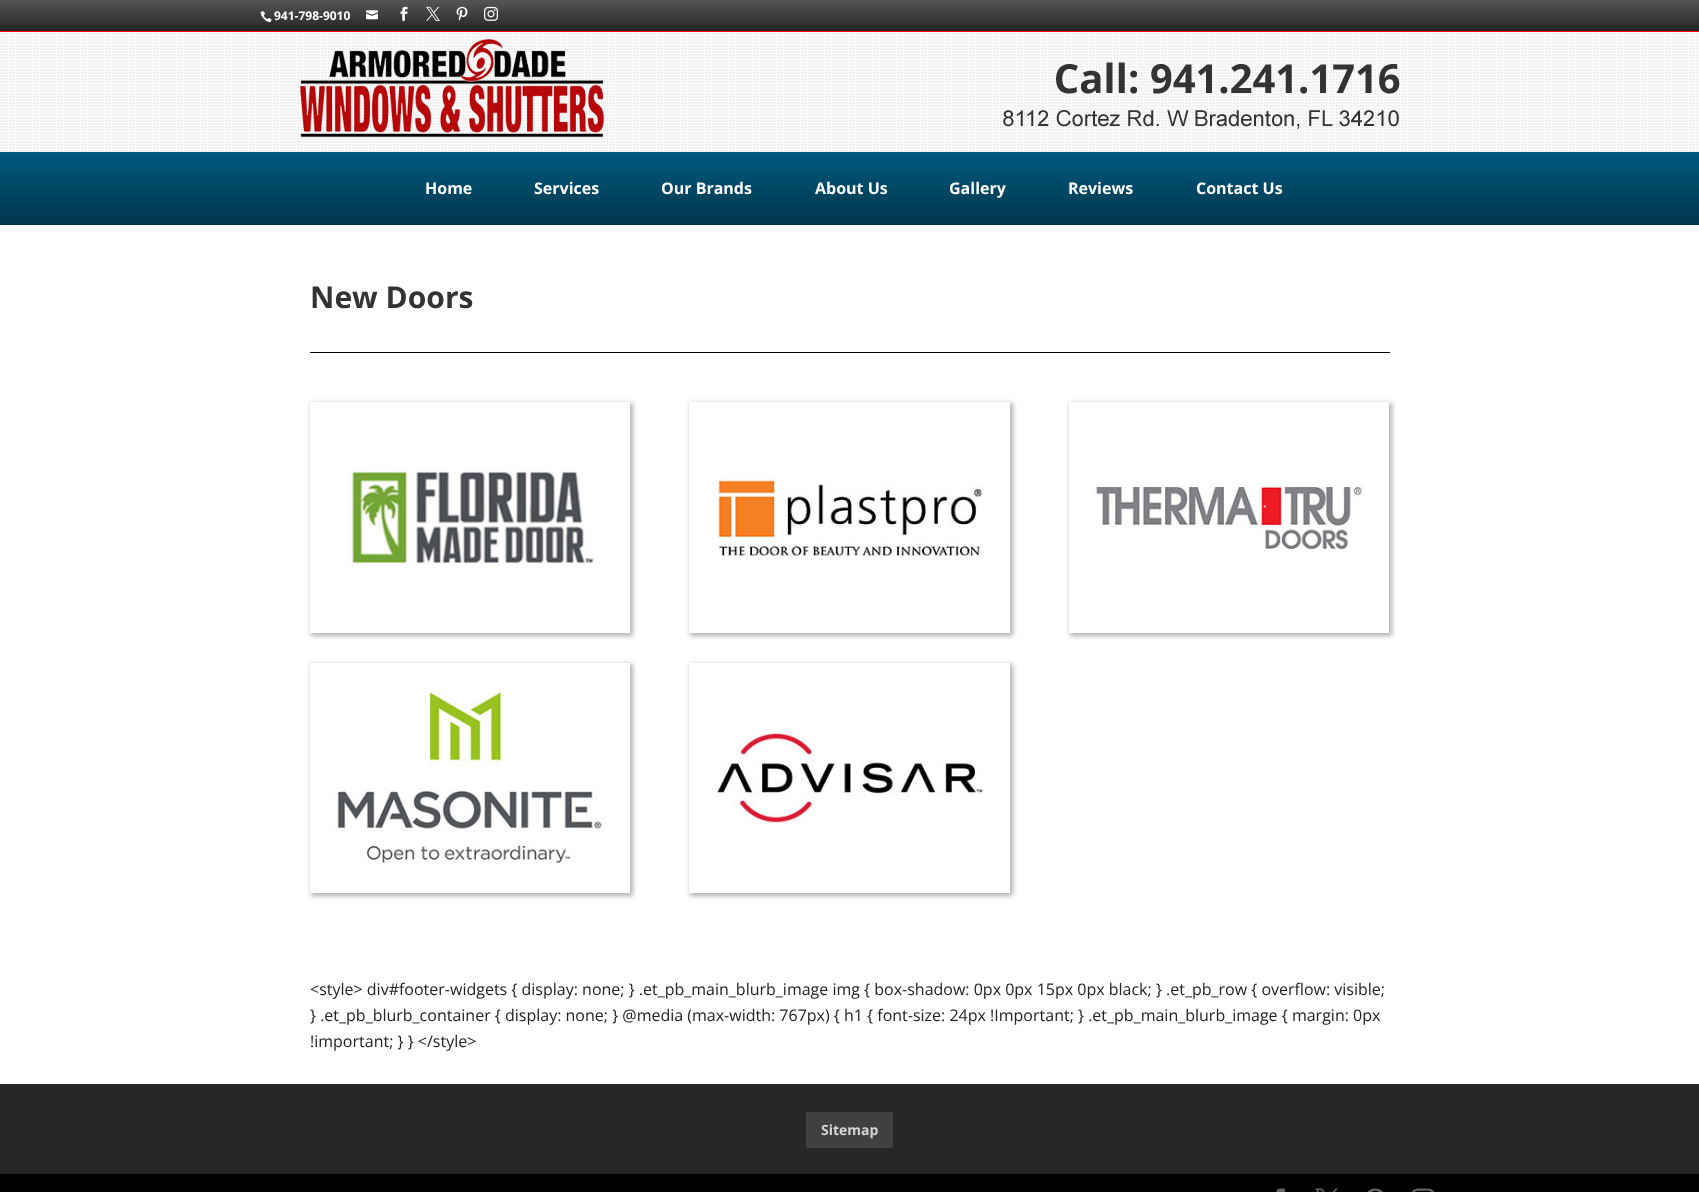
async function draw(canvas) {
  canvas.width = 1699;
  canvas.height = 1192;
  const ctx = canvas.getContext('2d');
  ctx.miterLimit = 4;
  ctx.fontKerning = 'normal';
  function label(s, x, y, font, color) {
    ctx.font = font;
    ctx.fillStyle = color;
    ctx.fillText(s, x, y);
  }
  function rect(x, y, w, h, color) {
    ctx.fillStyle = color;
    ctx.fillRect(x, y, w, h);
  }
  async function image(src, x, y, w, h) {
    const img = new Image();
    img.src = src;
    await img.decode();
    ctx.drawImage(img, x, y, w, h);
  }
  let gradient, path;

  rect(0, 0, 1699, 1192, '#fff');
  await image('assets/img1.png', 0, 31, 1699, 194);
  gradient = ctx.createLinearGradient(850, 0, 850, 31);
  gradient.addColorStop(0, '#555');
  gradient.addColorStop(1, '#252525');
  ctx.fillStyle = gradient;
  ctx.fillRect(0, 0, 1699, 31);
  await image('assets/img2.png', 260, 11, 12, 12);
  label('941-798-9010', 274, 20, 'bold 12px Open Sans', '#fff');
  await image('assets/img3.png', 366, 10, 12, 10);
  await image('assets/img4.png', 400, 6, 8, 15);
  await image('assets/img5.png', 426, 6, 14, 15);
  await image('assets/img6.png', 456, 6, 12, 15);
  await image('assets/img7.png', 484, 6, 14, 15);
  await image('assets/img8.png', 299, 38, 1101, 100);
  label('Home', 425, 194, 'bold 16px Open Sans', '#fff');
  label('Services', 534, 194, 'bold 16px Open Sans', '#fff');
  label('Our Brands', 661, 194, 'bold 16px Open Sans', '#fff');
  label('About Us', 815, 194, 'bold 16px Open Sans', '#fff');
  label('Gallery', 949, 194, 'bold 16px Open Sans', '#fff');
  label('Reviews', 1068, 194, 'bold 16px Open Sans', '#fff');
  label('Contact Us', 1196, 194, 'bold 16px Open Sans', '#fff');
  label('New Doors', 310, 308, 'bold 30px Open Sans', '#333');
  rect(310, 352, 1080, 1, '#000');
  ctx.save();
  path = new Path2D('M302 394H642V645H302ZM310 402H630V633H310Z');
  ctx.clip(path, 'evenodd');
  ctx.fillStyle = '#0000004d';
  ctx.filter = 'blur(2.5px)';
  ctx.beginPath();
  ctx.rect(311, 403, 322, 233);
  ctx.fill();
  ctx.filter = 'none';
  ctx.restore();
  await image('assets/img9.png', 347, 469, 247, 96);
  ctx.save();
  path = new Path2D('M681 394H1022V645H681ZM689 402H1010V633H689Z');
  ctx.clip(path, 'evenodd');
  ctx.fillStyle = '#0000004d';
  ctx.filter = 'blur(2.5px)';
  ctx.beginPath();
  ctx.rect(690, 403, 323, 233);
  ctx.fill();
  ctx.filter = 'none';
  ctx.restore();
  await image('assets/img10.png', 718, 476, 267, 81);
  ctx.save();
  path = new Path2D('M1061 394H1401V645H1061ZM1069 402H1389V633H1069Z');
  ctx.clip(path, 'evenodd');
  ctx.fillStyle = '#0000004d';
  ctx.filter = 'blur(2.5px)';
  ctx.beginPath();
  ctx.rect(1070, 403, 322, 233);
  ctx.fill();
  ctx.filter = 'none';
  ctx.restore();
  await image('assets/img11.png', 1092, 483, 272, 67);
  ctx.save();
  path = new Path2D('M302 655H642V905H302ZM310 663H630V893H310Z');
  ctx.clip(path, 'evenodd');
  ctx.fillStyle = '#0000004d';
  ctx.filter = 'blur(2.5px)';
  ctx.beginPath();
  ctx.rect(311, 664, 322, 232);
  ctx.fill();
  ctx.filter = 'none';
  ctx.restore();
  await image('assets/img12.png', 332, 692, 273, 172);
  ctx.save();
  path = new Path2D('M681 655H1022V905H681ZM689 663H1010V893H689Z');
  ctx.clip(path, 'evenodd');
  ctx.fillStyle = '#0000004d';
  ctx.filter = 'blur(2.5px)';
  ctx.beginPath();
  ctx.rect(690, 664, 323, 232);
  ctx.fill();
  ctx.filter = 'none';
  ctx.restore();
  await image('assets/img13.png', 712, 729, 272, 96);
  label('<style> div#footer-widgets { display: none; } .et_pb_main_blurb_image img { box-shadow: 0px 0px 15px 0px black; } .et_pb_row { overflow: visible;', 310, 995, '16px Open Sans', '#222');
  label('} .et_pb_blurb_container { display: none; } @media (max-width: 767px) { h1 { font-size: 24px !Important; } .et_pb_main_blurb_image { margin: 0px', 310, 1021, '16px Open Sans', '#222');
  label('!important; } } <\/style>', 310, 1047, '16px Open Sans', '#222');
  rect(0, 1084, 1699, 90, '#272727');
  rect(806, 1112, 87, 36, '#404040');
  label('Sitemap', 821, 1135, 'bold 14px Open Sans', '#d5d5d5');
  rect(0, 1174, 1699, 18, '#000');
  await image('assets/img14.png', 1276, 1188, 9, 4);
  await image('assets/img15.png', 1315, 1188, 23, 4);
  await image('assets/img16.png', 1367, 1188, 16, 4);
  await image('assets/img17.png', 1412, 1188, 22, 4);
}

draw(document.querySelector('canvas'));
